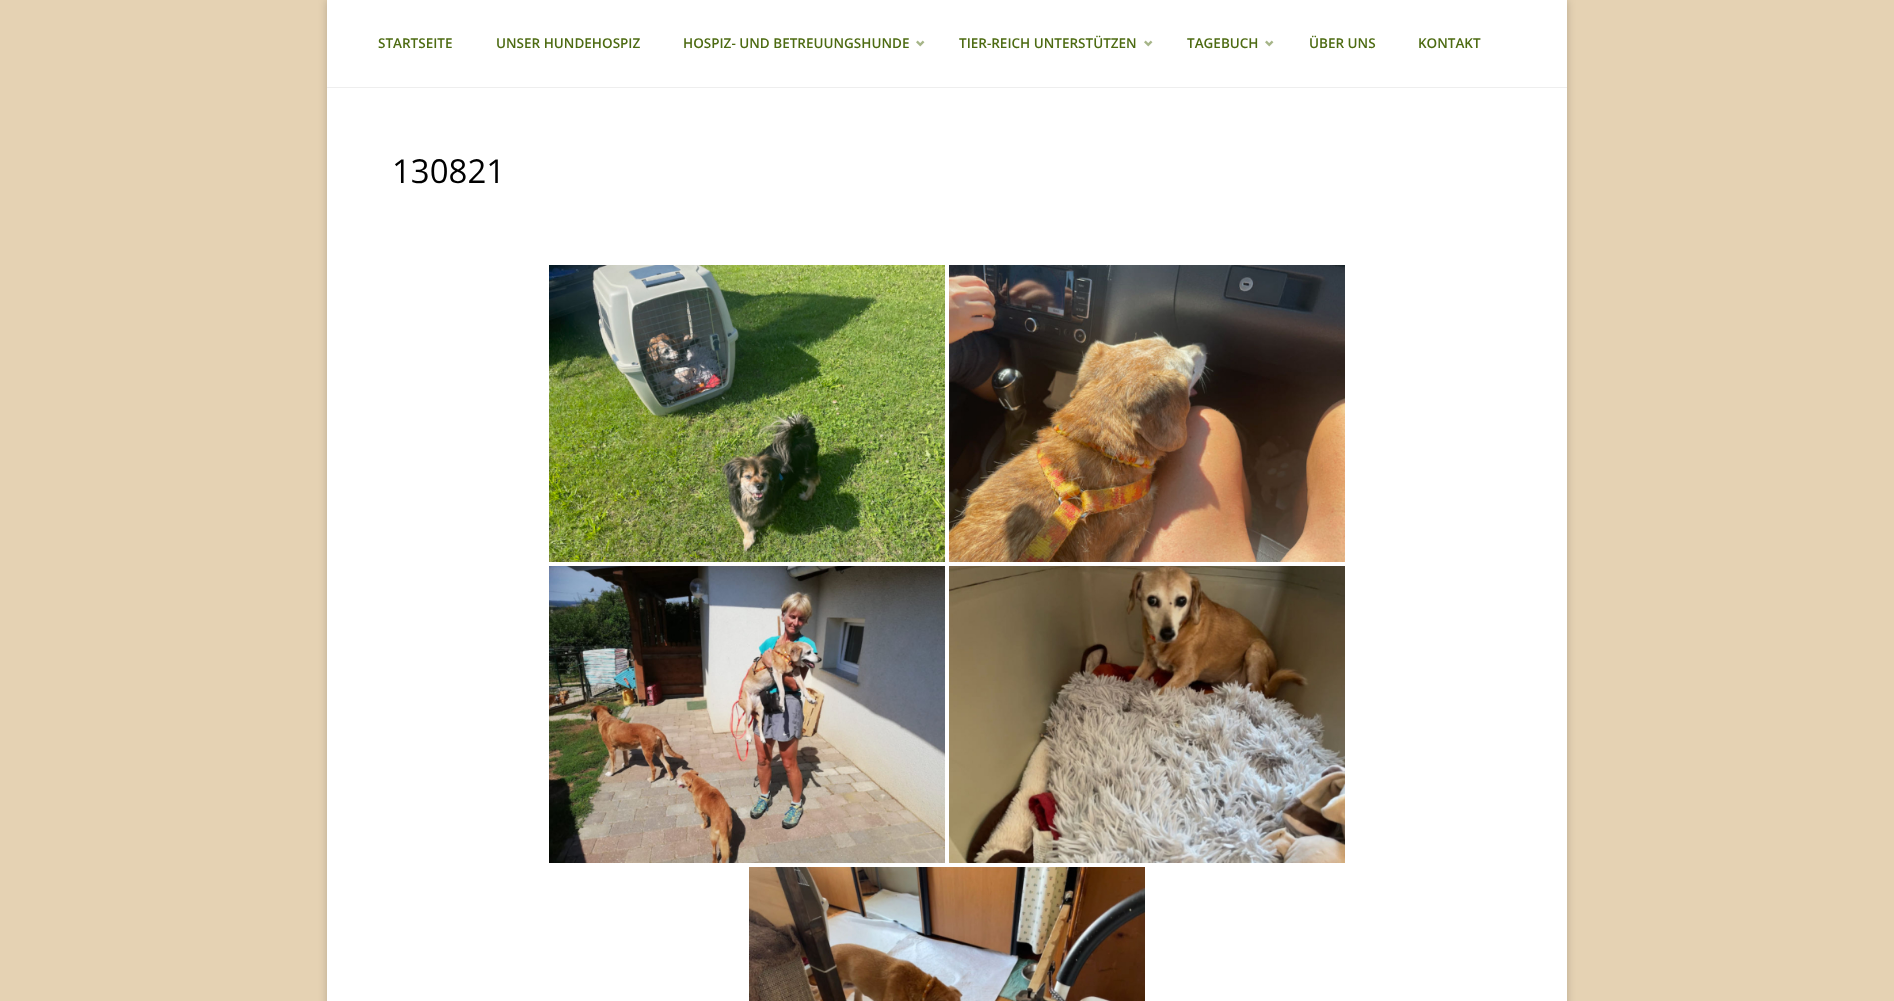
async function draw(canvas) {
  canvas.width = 1894;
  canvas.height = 1001;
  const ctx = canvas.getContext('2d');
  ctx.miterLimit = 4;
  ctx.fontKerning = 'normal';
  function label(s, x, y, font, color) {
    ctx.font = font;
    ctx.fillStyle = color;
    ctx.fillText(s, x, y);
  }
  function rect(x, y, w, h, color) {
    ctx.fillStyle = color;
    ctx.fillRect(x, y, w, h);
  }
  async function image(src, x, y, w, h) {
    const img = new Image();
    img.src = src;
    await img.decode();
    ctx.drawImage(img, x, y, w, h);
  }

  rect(0, 0, 1894, 1001, '#e5d2b3');
  ctx.fillStyle = '#00000033';
  ctx.filter = 'blur(4px)';
  ctx.beginPath();
  ctx.rect(327, 0, 1240, 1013);
  ctx.fill();
  ctx.filter = 'none';
  rect(327, 87, 1240, 1, '#eee');
  rect(327, 0, 1240, 87, '#fff');
  label('STARTSEITE', 378, 48, '600 13.5px Open Sans', '#4d6b12');
  label('UNSER HUNDEHOSPIZ', 496, 48, '600 13.5px Open Sans', '#4d6b12');
  label('HOSPIZ- UND BETREUUNGSHUNDE', 683, 48, '600 13.5px Open Sans', '#4d6b12');
  await image('assets/img1.png', 916, 40, 9, 7);
  label('TIER-REICH UNTERSTÜTZEN', 959, 48, '600 13.5px Open Sans', '#4d6b12');
  await image('assets/img1.png', 1144, 40, 9, 7);
  label('TAGEBUCH', 1187, 48, '600 13.5px Open Sans', '#4d6b12');
  await image('assets/img1.png', 1265, 40, 9, 7);
  label('ÜBER UNS', 1309, 48, '600 13.5px Open Sans', '#4d6b12');
  label('KONTAKT', 1418, 48, '600 13.5px Open Sans', '#4d6b12');
  rect(327, 88, 1240, 913, '#fff');
  label('130821', 392, 183, '33px Open Sans', '#000');
  await image('assets/img2.png', 549, 265, 396, 297);
  await image('assets/img3.png', 949, 265, 396, 297);
  await image('assets/img4.png', 549, 566, 396, 297);
  await image('assets/img5.png', 949, 566, 396, 297);
  await image('assets/img6.png', 749, 867, 396, 134);
}

draw(document.querySelector('canvas'));
